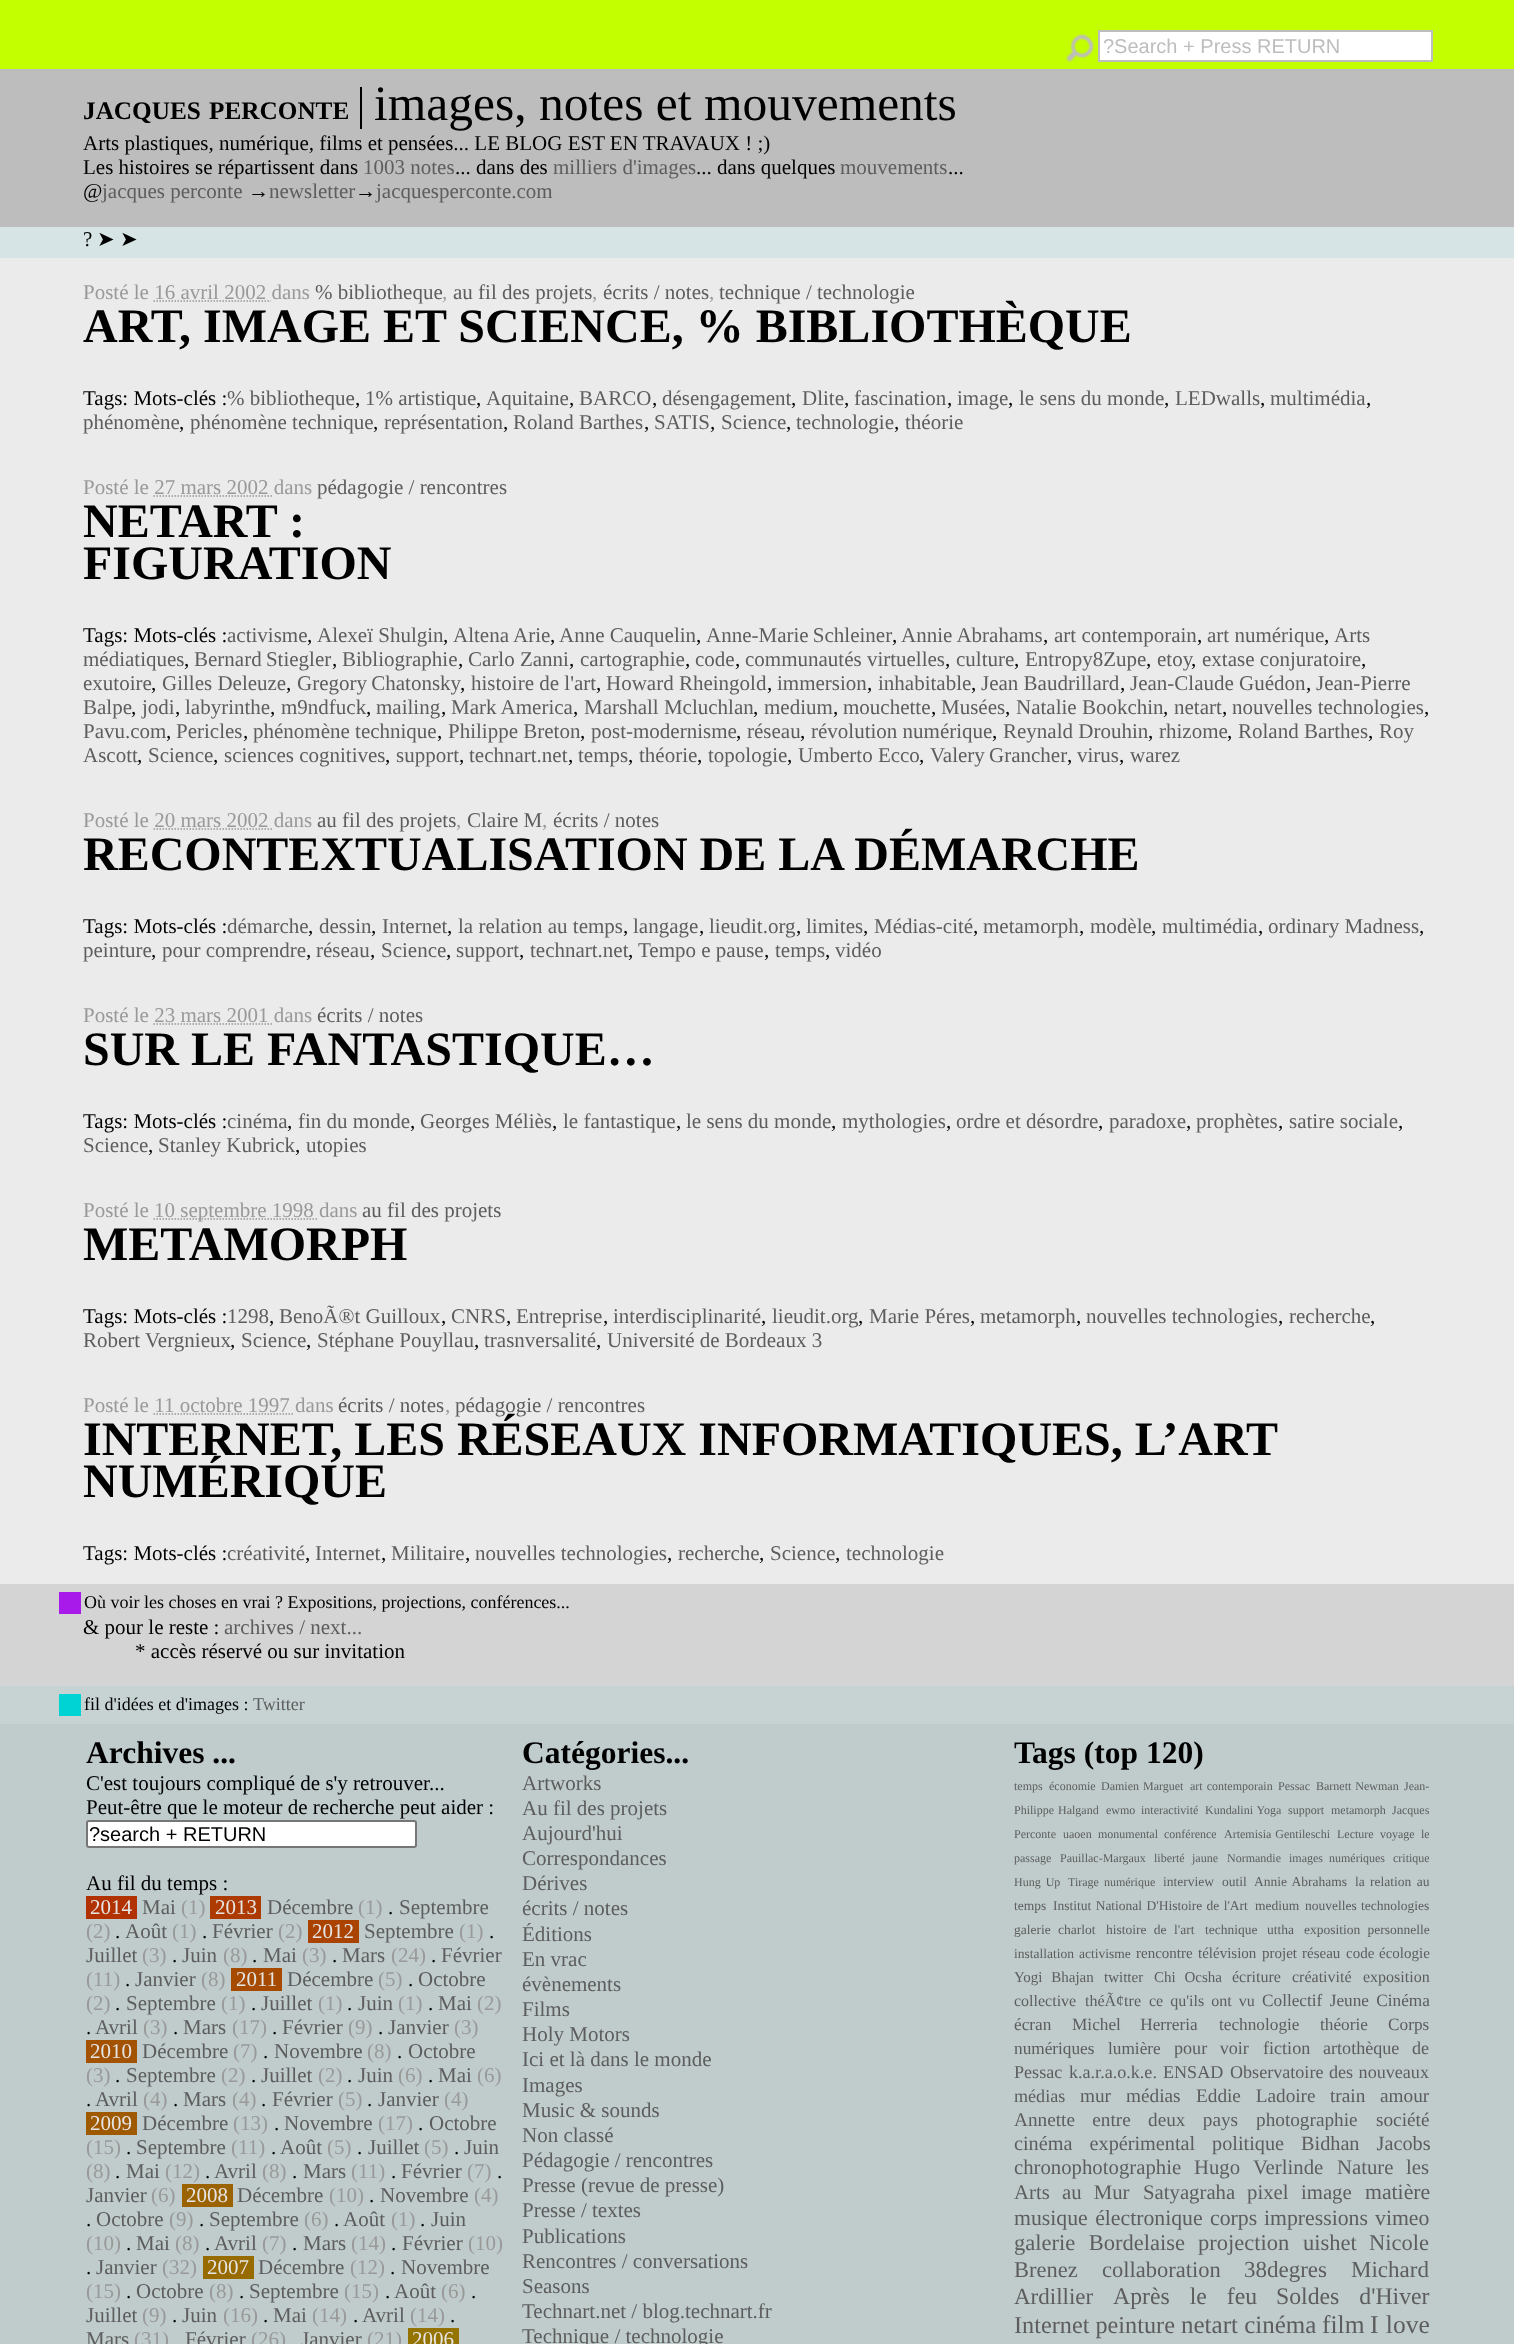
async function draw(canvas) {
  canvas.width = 1514;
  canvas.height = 2344;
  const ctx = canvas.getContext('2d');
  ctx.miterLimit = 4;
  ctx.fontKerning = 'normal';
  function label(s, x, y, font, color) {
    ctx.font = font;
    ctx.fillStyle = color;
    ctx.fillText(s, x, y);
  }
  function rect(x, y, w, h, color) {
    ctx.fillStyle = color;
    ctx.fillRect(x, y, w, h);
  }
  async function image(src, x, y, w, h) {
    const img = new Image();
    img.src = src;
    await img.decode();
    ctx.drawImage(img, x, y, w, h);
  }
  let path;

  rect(0, 0, 1514, 2344, '#c4ff00');
  await image('assets/img1.png', 1066, 34, 28, 28);
  ctx.fillStyle = '#fff';
  ctx.beginPath();
  ctx.rect(1099, 31, 333, 30);
  ctx.fill();
  ctx.strokeStyle = '#bdbdbd';
  ctx.lineWidth = 2;
  ctx.stroke();
  label('?Search + Press RETURN', 1103, 53, '20px Liberation Sans', '#bdbdbd');
  rect(0, 69, 1514, 158, '#bdbdbd');
  label('JACQUES', 83, 119, 'bold 25.25px Liberation Serif', '#000');
  label('PERCONTE', 209, 119, 'bold 25.25px Liberation Serif', '#000');
  rect(360, 87, 2, 42, '#000');
  label('images, notes et mouvements', 374, 120, '49.5px Liberation Serif', '#000');
  label('Arts plastiques, numérique, films et pensées... LE BLOG EST EN TRAVAUX ! ;)', 83, 150, '21px Liberation Serif', '#000');
  label('Les histoires se répartissent dans', 83, 174, '21px Liberation Serif', '#000');
  label('1003 notes', 363, 174, '21px Liberation Serif', '#5d5d5d');
  label('... dans des', 455, 174, '21px Liberation Serif', '#000');
  label('milliers d\'images', 553, 174, '21px Liberation Serif', '#5d5d5d');
  label('... dans quelques', 696, 174, '21px Liberation Serif', '#000');
  label('mouvements', 840, 174, '21px Liberation Serif', '#5d5d5d');
  label('...', 948, 174, '21px Liberation Serif', '#000');
  label('@', 83, 198, '21px Liberation Serif', '#000');
  label('jacques perconte', 102, 198, '21px Liberation Serif', '#5d5d5d');
  label('→', 248, 198, '21px Liberation Serif', '#000');
  label('newsletter', 269, 198, '21px Liberation Serif', '#5d5d5d');
  label('→', 355, 198, '21px Liberation Serif', '#000');
  label('jacquesperconte.com', 376, 198, '21px Liberation Serif', '#5d5d5d');
  rect(0, 227, 1514, 31, '#d6e4e5');
  label('?', 83, 246, '21px Liberation Serif', '#000');
  label('➤', 97, 246, '21px DejaVu Sans', '#000');
  label('➤', 120, 246, '21px DejaVu Sans', '#000');
  rect(0, 258, 1514, 1326, '#ebebeb');
  label('Posté le 16 avril 2002 dans', 83, 299, '21px Liberation Serif', '#999');
  label('% bibliotheque', 315, 299, '21px Liberation Serif', '#5d5d5d');
  label(',', 442, 299, '21px Liberation Serif', '#999');
  label('au fil des projets', 453, 299, '21px Liberation Serif', '#5d5d5d');
  label(',', 592, 299, '21px Liberation Serif', '#999');
  label('écrits / notes', 603, 299, '21px Liberation Serif', '#5d5d5d');
  label(',', 709, 299, '21px Liberation Serif', '#999');
  label('technique / technologie', 719, 299, '21px Liberation Serif', '#5d5d5d');
  path = new Path2D('M153.5 301H271');
  ctx.strokeStyle = '#999';
  ctx.lineWidth = 1.5;
  ctx.setLineDash([1.5, 1.5]);
  ctx.stroke(path);
  label('ART, IMAGE ET SCIENCE, % BIBLIOTHÈQUE', 83, 342, 'bold 48px Liberation Serif', '#000');
  label('Tags: Mots-clés :', 83, 405, '21px Liberation Serif', '#000');
  label('% bibliotheque', 227, 405, '21px Liberation Serif', '#5d5d5d');
  label(',', 355, 405, '21px Liberation Serif', '#000');
  label('1% artistique', 365, 405, '21px Liberation Serif', '#5d5d5d');
  label(',', 476, 405, '21px Liberation Serif', '#000');
  label('Aquitaine', 486, 405, '21px Liberation Serif', '#5d5d5d');
  label(',', 569, 405, '21px Liberation Serif', '#000');
  label('BARCO', 579, 405, '21px Liberation Serif', '#5d5d5d');
  label(',', 652, 405, '21px Liberation Serif', '#000');
  label('désengagement', 662, 405, '21px Liberation Serif', '#5d5d5d');
  label(',', 791, 405, '21px Liberation Serif', '#000');
  label('Dlite', 802, 405, '21px Liberation Serif', '#5d5d5d');
  label(',', 844, 405, '21px Liberation Serif', '#000');
  label('fascination', 854, 405, '21px Liberation Serif', '#5d5d5d');
  label(',', 947, 405, '21px Liberation Serif', '#000');
  label('image', 957, 405, '21px Liberation Serif', '#5d5d5d');
  label(',', 1008, 405, '21px Liberation Serif', '#000');
  label('le sens du monde', 1019, 405, '21px Liberation Serif', '#5d5d5d');
  label(',', 1164, 405, '21px Liberation Serif', '#000');
  label('LEDwalls', 1175, 405, '21px Liberation Serif', '#5d5d5d');
  label(',', 1260, 405, '21px Liberation Serif', '#000');
  label('multimédia', 1270, 405, '21px Liberation Serif', '#5d5d5d');
  label(',', 1366, 405, '21px Liberation Serif', '#000');
  label('phénomène', 83, 429, '21px Liberation Serif', '#5d5d5d');
  label(',', 179, 429, '21px Liberation Serif', '#000');
  label('phénomène technique', 190, 429, '21px Liberation Serif', '#5d5d5d');
  label(',', 373, 429, '21px Liberation Serif', '#000');
  label('représentation', 384, 429, '21px Liberation Serif', '#5d5d5d');
  label(',', 503, 429, '21px Liberation Serif', '#000');
  label('Roland Barthes', 513, 429, '21px Liberation Serif', '#5d5d5d');
  label(',', 644, 429, '21px Liberation Serif', '#000');
  label('SATIS', 654, 429, '21px Liberation Serif', '#5d5d5d');
  label(',', 710, 429, '21px Liberation Serif', '#000');
  label('Science', 721, 429, '21px Liberation Serif', '#5d5d5d');
  label(',', 786, 429, '21px Liberation Serif', '#000');
  label('technologie', 796, 429, '21px Liberation Serif', '#5d5d5d');
  label(',', 894, 429, '21px Liberation Serif', '#000');
  label('théorie', 905, 429, '21px Liberation Serif', '#5d5d5d');
  label('Posté le 27 mars 2002 dans', 83, 494, '21px Liberation Serif', '#999');
  label('pédagogie / rencontres', 317, 494, '21px Liberation Serif', '#5d5d5d');
  path = new Path2D('M153.5 496H273.5');
  ctx.stroke(path);
  label('NETART :', 83, 537, 'bold 48px Liberation Serif', '#000');
  label('FIGURATION', 83, 579, 'bold 48px Liberation Serif', '#000');
  label('Tags: Mots-clés :', 83, 642, '21px Liberation Serif', '#000');
  label('activisme', 227, 642, '21px Liberation Serif', '#5d5d5d');
  label(',', 307, 642, '21px Liberation Serif', '#000');
  label('Alexeï Shulgin', 317, 642, '21px Liberation Serif', '#5d5d5d');
  label(',', 443, 642, '21px Liberation Serif', '#000');
  label('Altena Arie', 453, 642, '21px Liberation Serif', '#5d5d5d');
  label(',', 550, 642, '21px Liberation Serif', '#000');
  label('Anne Cauquelin', 559, 642, '21px Liberation Serif', '#5d5d5d');
  label(',', 696, 642, '21px Liberation Serif', '#000');
  ctx.wordSpacing = '-1px';
  label('Anne-Marie Schleiner', 706, 642, '21px Liberation Serif', '#5d5d5d');
  ctx.wordSpacing = '0px';
  label(',', 892, 642, '21px Liberation Serif', '#000');
  label('Annie Abrahams', 901, 642, '21px Liberation Serif', '#5d5d5d');
  label(',', 1043, 642, '21px Liberation Serif', '#000');
  label('art contemporain', 1054, 642, '21px Liberation Serif', '#5d5d5d');
  label(',', 1197, 642, '21px Liberation Serif', '#000');
  label('art numérique', 1207, 642, '21px Liberation Serif', '#5d5d5d');
  label(',', 1324, 642, '21px Liberation Serif', '#000');
  label('Arts', 1334, 642, '21px Liberation Serif', '#5d5d5d');
  label('médiatiques', 83, 666, '21px Liberation Serif', '#5d5d5d');
  label(',', 184, 666, '21px Liberation Serif', '#000');
  ctx.wordSpacing = '-1px';
  label('Bernard Stiegler', 194, 666, '21px Liberation Serif', '#5d5d5d');
  ctx.wordSpacing = '0px';
  label(',', 332, 666, '21px Liberation Serif', '#000');
  label('Bibliographie', 342, 666, '21px Liberation Serif', '#5d5d5d');
  label(',', 458, 666, '21px Liberation Serif', '#000');
  label('Carlo Zanni', 468, 666, '21px Liberation Serif', '#5d5d5d');
  label(',', 569, 666, '21px Liberation Serif', '#000');
  label('cartographie', 580, 666, '21px Liberation Serif', '#5d5d5d');
  label(',', 685, 666, '21px Liberation Serif', '#000');
  label('code', 695, 666, '21px Liberation Serif', '#5d5d5d');
  label(',', 735, 666, '21px Liberation Serif', '#000');
  label('communautés virtuelles', 745, 666, '21px Liberation Serif', '#5d5d5d');
  label(',', 945, 666, '21px Liberation Serif', '#000');
  label('culture', 956, 666, '21px Liberation Serif', '#5d5d5d');
  label(',', 1014, 666, '21px Liberation Serif', '#000');
  label('Entropy8Zupe', 1025, 666, '21px Liberation Serif', '#5d5d5d');
  label(',', 1146, 666, '21px Liberation Serif', '#000');
  label('etoy', 1157, 666, '21px Liberation Serif', '#5d5d5d');
  label(',', 1191, 666, '21px Liberation Serif', '#000');
  label('extase conjuratoire', 1202, 666, '21px Liberation Serif', '#5d5d5d');
  label(',', 1361, 666, '21px Liberation Serif', '#000');
  label('exutoire', 83, 690, '21px Liberation Serif', '#5d5d5d');
  label(',', 151, 690, '21px Liberation Serif', '#000');
  label('Gilles Deleuze', 162, 690, '21px Liberation Serif', '#5d5d5d');
  label(',', 286, 690, '21px Liberation Serif', '#000');
  ctx.wordSpacing = '-1px';
  label('Gregory Chatonsky', 297, 690, '21px Liberation Serif', '#5d5d5d');
  ctx.wordSpacing = '0px';
  label(',', 460, 690, '21px Liberation Serif', '#000');
  label('histoire de l\'art', 471, 690, '21px Liberation Serif', '#5d5d5d');
  label(',', 596, 690, '21px Liberation Serif', '#000');
  label('Howard Rheingold', 606, 690, '21px Liberation Serif', '#5d5d5d');
  label(',', 767, 690, '21px Liberation Serif', '#000');
  label('immersion', 777, 690, '21px Liberation Serif', '#5d5d5d');
  label(',', 867, 690, '21px Liberation Serif', '#000');
  label('inhabitable', 878, 690, '21px Liberation Serif', '#5d5d5d');
  label(',', 971, 690, '21px Liberation Serif', '#000');
  label('Jean Baudrillard', 981, 690, '21px Liberation Serif', '#5d5d5d');
  label(',', 1120, 690, '21px Liberation Serif', '#000');
  label('Jean-Claude Guédon', 1130, 690, '21px Liberation Serif', '#5d5d5d');
  label(',', 1306, 690, '21px Liberation Serif', '#000');
  label('Jean-Pierre', 1316, 690, '21px Liberation Serif', '#5d5d5d');
  label('Balpe', 83, 714, '21px Liberation Serif', '#5d5d5d');
  label(',', 131, 714, '21px Liberation Serif', '#000');
  label('jodi', 142, 714, '21px Liberation Serif', '#5d5d5d');
  label(',', 175, 714, '21px Liberation Serif', '#000');
  label('labyrinthe', 185, 714, '21px Liberation Serif', '#5d5d5d');
  label(',', 270, 714, '21px Liberation Serif', '#000');
  label('m9ndfuck', 281, 714, '21px Liberation Serif', '#5d5d5d');
  label(',', 366, 714, '21px Liberation Serif', '#000');
  label('mailing', 376, 714, '21px Liberation Serif', '#5d5d5d');
  label(',', 441, 714, '21px Liberation Serif', '#000');
  label('Mark America', 451, 714, '21px Liberation Serif', '#5d5d5d');
  label(',', 573, 714, '21px Liberation Serif', '#000');
  label('Marshall Mcluchlan', 584, 714, '21px Liberation Serif', '#5d5d5d');
  label(',', 753, 714, '21px Liberation Serif', '#000');
  label('medium', 764, 714, '21px Liberation Serif', '#5d5d5d');
  label(',', 833, 714, '21px Liberation Serif', '#000');
  label('mouchette', 843, 714, '21px Liberation Serif', '#5d5d5d');
  label(',', 931, 714, '21px Liberation Serif', '#000');
  label('Musées', 941, 714, '21px Liberation Serif', '#5d5d5d');
  label(',', 1005, 714, '21px Liberation Serif', '#000');
  label('Natalie Bookchin', 1016, 714, '21px Liberation Serif', '#5d5d5d');
  label(',', 1163, 714, '21px Liberation Serif', '#000');
  label('netart', 1174, 714, '21px Liberation Serif', '#5d5d5d');
  label(',', 1222, 714, '21px Liberation Serif', '#000');
  label('nouvelles technologies', 1232, 714, '21px Liberation Serif', '#5d5d5d');
  label(',', 1424, 714, '21px Liberation Serif', '#000');
  label('Pavu.com', 83, 738, '21px Liberation Serif', '#5d5d5d');
  label(',', 166, 738, '21px Liberation Serif', '#000');
  label('Pericles', 176, 738, '21px Liberation Serif', '#5d5d5d');
  label(',', 243, 738, '21px Liberation Serif', '#000');
  label('phénomène technique', 253, 738, '21px Liberation Serif', '#5d5d5d');
  label(',', 437, 738, '21px Liberation Serif', '#000');
  label('Philippe Breton', 448, 738, '21px Liberation Serif', '#5d5d5d');
  label(',', 580, 738, '21px Liberation Serif', '#000');
  label('post-modernisme', 591, 738, '21px Liberation Serif', '#5d5d5d');
  label(',', 736, 738, '21px Liberation Serif', '#000');
  label('réseau', 747, 738, '21px Liberation Serif', '#5d5d5d');
  label(',', 800, 738, '21px Liberation Serif', '#000');
  label('révolution numérique', 811, 738, '21px Liberation Serif', '#5d5d5d');
  label(',', 992, 738, '21px Liberation Serif', '#000');
  label('Reynald Drouhin', 1003, 738, '21px Liberation Serif', '#5d5d5d');
  label(',', 1148, 738, '21px Liberation Serif', '#000');
  label('rhizome', 1159, 738, '21px Liberation Serif', '#5d5d5d');
  label(',', 1227, 738, '21px Liberation Serif', '#000');
  label('Roland Barthes', 1238, 738, '21px Liberation Serif', '#5d5d5d');
  label(',', 1368, 738, '21px Liberation Serif', '#000');
  label('Roy', 1379, 738, '21px Liberation Serif', '#5d5d5d');
  label('Ascott', 83, 762, '21px Liberation Serif', '#5d5d5d');
  label(',', 137, 762, '21px Liberation Serif', '#000');
  label('Science', 148, 762, '21px Liberation Serif', '#5d5d5d');
  label(',', 213, 762, '21px Liberation Serif', '#000');
  label('sciences cognitives', 224, 762, '21px Liberation Serif', '#5d5d5d');
  label(',', 385, 762, '21px Liberation Serif', '#000');
  label('support', 396, 762, '21px Liberation Serif', '#5d5d5d');
  label(',', 459, 762, '21px Liberation Serif', '#000');
  label('technart.net', 469, 762, '21px Liberation Serif', '#5d5d5d');
  label(',', 568, 762, '21px Liberation Serif', '#000');
  label('temps', 578, 762, '21px Liberation Serif', '#5d5d5d');
  label(',', 628, 762, '21px Liberation Serif', '#000');
  label('théorie', 639, 762, '21px Liberation Serif', '#5d5d5d');
  label(',', 697, 762, '21px Liberation Serif', '#000');
  label('topologie', 708, 762, '21px Liberation Serif', '#5d5d5d');
  label(',', 787, 762, '21px Liberation Serif', '#000');
  label('Umberto Ecco', 798, 762, '21px Liberation Serif', '#5d5d5d');
  label(',', 919, 762, '21px Liberation Serif', '#000');
  ctx.wordSpacing = '-1px';
  label('Valery Grancher', 930, 762, '21px Liberation Serif', '#5d5d5d');
  ctx.wordSpacing = '0px';
  label(',', 1067, 762, '21px Liberation Serif', '#000');
  label('virus', 1077, 762, '21px Liberation Serif', '#5d5d5d');
  label(',', 1119, 762, '21px Liberation Serif', '#000');
  label('warez', 1130, 762, '21px Liberation Serif', '#5d5d5d');
  label('Posté le 20 mars 2002 dans', 83, 827, '21px Liberation Serif', '#999');
  label('au fil des projets', 317, 827, '21px Liberation Serif', '#5d5d5d');
  label(',', 456, 827, '21px Liberation Serif', '#999');
  label('Claire M', 467, 827, '21px Liberation Serif', '#5d5d5d');
  label(',', 542, 827, '21px Liberation Serif', '#999');
  label('écrits / notes', 553, 827, '21px Liberation Serif', '#5d5d5d');
  path = new Path2D('M153.5 829H273.5');
  ctx.stroke(path);
  label('RECONTEXTUALISATION DE LA DÉMARCHE', 83, 870, 'bold 48px Liberation Serif', '#000');
  label('Tags: Mots-clés :', 83, 933, '21px Liberation Serif', '#000');
  label('démarche', 227, 933, '21px Liberation Serif', '#5d5d5d');
  label(',', 308, 933, '21px Liberation Serif', '#000');
  label('dessin', 319, 933, '21px Liberation Serif', '#5d5d5d');
  label(',', 371, 933, '21px Liberation Serif', '#000');
  label('Internet', 382, 933, '21px Liberation Serif', '#5d5d5d');
  label(',', 447, 933, '21px Liberation Serif', '#000');
  label('la relation au temps', 458, 933, '21px Liberation Serif', '#5d5d5d');
  label(',', 623, 933, '21px Liberation Serif', '#000');
  label('langage', 633, 933, '21px Liberation Serif', '#5d5d5d');
  label(',', 699, 933, '21px Liberation Serif', '#000');
  label('lieudit.org', 709, 933, '21px Liberation Serif', '#5d5d5d');
  label(',', 796, 933, '21px Liberation Serif', '#000');
  label('limites', 806, 933, '21px Liberation Serif', '#5d5d5d');
  label(',', 863, 933, '21px Liberation Serif', '#000');
  label('Médias-cité', 874, 933, '21px Liberation Serif', '#5d5d5d');
  label(',', 973, 933, '21px Liberation Serif', '#000');
  label('metamorph', 983, 933, '21px Liberation Serif', '#5d5d5d');
  label(',', 1079, 933, '21px Liberation Serif', '#000');
  label('modèle', 1090, 933, '21px Liberation Serif', '#5d5d5d');
  label(',', 1151, 933, '21px Liberation Serif', '#000');
  label('multimédia', 1162, 933, '21px Liberation Serif', '#5d5d5d');
  label(',', 1258, 933, '21px Liberation Serif', '#000');
  label('ordinary Madness', 1268, 933, '21px Liberation Serif', '#5d5d5d');
  label(',', 1419, 933, '21px Liberation Serif', '#000');
  label('peinture', 83, 957, '21px Liberation Serif', '#5d5d5d');
  label(',', 151, 957, '21px Liberation Serif', '#000');
  label('pour comprendre', 162, 957, '21px Liberation Serif', '#5d5d5d');
  label(',', 306, 957, '21px Liberation Serif', '#000');
  label('réseau', 316, 957, '21px Liberation Serif', '#5d5d5d');
  label(',', 370, 957, '21px Liberation Serif', '#000');
  label('Science', 381, 957, '21px Liberation Serif', '#5d5d5d');
  label(',', 446, 957, '21px Liberation Serif', '#000');
  label('support', 456, 957, '21px Liberation Serif', '#5d5d5d');
  label(',', 519, 957, '21px Liberation Serif', '#000');
  label('technart.net', 530, 957, '21px Liberation Serif', '#5d5d5d');
  label(',', 628, 957, '21px Liberation Serif', '#000');
  label('Tempo e pause', 638, 957, '21px Liberation Serif', '#5d5d5d');
  label(',', 764, 957, '21px Liberation Serif', '#000');
  label('temps', 775, 957, '21px Liberation Serif', '#5d5d5d');
  label(',', 825, 957, '21px Liberation Serif', '#000');
  label('vidéo', 835, 957, '21px Liberation Serif', '#5d5d5d');
  label('Posté le 23 mars 2001 dans', 83, 1022, '21px Liberation Serif', '#999');
  label('écrits / notes', 317, 1022, '21px Liberation Serif', '#5d5d5d');
  path = new Path2D('M153.5 1024H273.5');
  ctx.stroke(path);
  label('SUR LE FANTASTIQUE…', 83, 1065, 'bold 48px Liberation Serif', '#000');
  label('Tags: Mots-clés :', 83, 1128, '21px Liberation Serif', '#000');
  label('cinéma', 227, 1128, '21px Liberation Serif', '#5d5d5d');
  label(',', 287, 1128, '21px Liberation Serif', '#000');
  label('fin du monde', 298, 1128, '21px Liberation Serif', '#5d5d5d');
  label(',', 410, 1128, '21px Liberation Serif', '#000');
  label('Georges Méliès', 420, 1128, '21px Liberation Serif', '#5d5d5d');
  label(',', 552, 1128, '21px Liberation Serif', '#000');
  label('le fantastique', 563, 1128, '21px Liberation Serif', '#5d5d5d');
  label(',', 676, 1128, '21px Liberation Serif', '#000');
  label('le sens du monde', 686, 1128, '21px Liberation Serif', '#5d5d5d');
  label(',', 831, 1128, '21px Liberation Serif', '#000');
  label('mythologies', 842, 1128, '21px Liberation Serif', '#5d5d5d');
  label(',', 946, 1128, '21px Liberation Serif', '#000');
  label('ordre et désordre', 956, 1128, '21px Liberation Serif', '#5d5d5d');
  label(',', 1098, 1128, '21px Liberation Serif', '#000');
  label('paradoxe', 1109, 1128, '21px Liberation Serif', '#5d5d5d');
  label(',', 1186, 1128, '21px Liberation Serif', '#000');
  label('prophètes', 1196, 1128, '21px Liberation Serif', '#5d5d5d');
  label(',', 1278, 1128, '21px Liberation Serif', '#000');
  label('satire sociale', 1289, 1128, '21px Liberation Serif', '#5d5d5d');
  label(',', 1398, 1128, '21px Liberation Serif', '#000');
  label('Science', 83, 1152, '21px Liberation Serif', '#5d5d5d');
  label(',', 148, 1152, '21px Liberation Serif', '#000');
  label('Stanley Kubrick', 158, 1152, '21px Liberation Serif', '#5d5d5d');
  label(',', 295, 1152, '21px Liberation Serif', '#000');
  label('utopies', 306, 1152, '21px Liberation Serif', '#5d5d5d');
  label('Posté le', 83, 1217, '21px Liberation Serif', '#999');
  path = new Path2D('M153.5 1219H318.5');
  ctx.stroke(path);
  label('10 septembre 1998 dans', 154, 1217, '21px Liberation Serif', '#999');
  label('au fil des projets', 362, 1217, '21px Liberation Serif', '#5d5d5d');
  label('METAMORPH', 83, 1260, 'bold 48px Liberation Serif', '#000');
  label('Tags: Mots-clés :', 83, 1323, '21px Liberation Serif', '#000');
  label('1298', 227, 1323, '21px Liberation Serif', '#5d5d5d');
  label(',', 269, 1323, '21px Liberation Serif', '#000');
  label('BenoÃ®t Guilloux', 279, 1323, '21px Liberation Serif', '#5d5d5d');
  label(',', 441, 1323, '21px Liberation Serif', '#000');
  label('CNRS', 451, 1323, '21px Liberation Serif', '#5d5d5d');
  label(',', 506, 1323, '21px Liberation Serif', '#000');
  label('Entreprise', 516, 1323, '21px Liberation Serif', '#5d5d5d');
  label(',', 603, 1323, '21px Liberation Serif', '#000');
  label('interdisciplinarité', 613, 1323, '21px Liberation Serif', '#5d5d5d');
  label(',', 761, 1323, '21px Liberation Serif', '#000');
  label('lieudit.org', 772, 1323, '21px Liberation Serif', '#5d5d5d');
  label(',', 858, 1323, '21px Liberation Serif', '#000');
  label('Marie Péres', 869, 1323, '21px Liberation Serif', '#5d5d5d');
  label(',', 970, 1323, '21px Liberation Serif', '#000');
  label('metamorph', 980, 1323, '21px Liberation Serif', '#5d5d5d');
  label(',', 1076, 1323, '21px Liberation Serif', '#000');
  label('nouvelles technologies', 1086, 1323, '21px Liberation Serif', '#5d5d5d');
  label(',', 1278, 1323, '21px Liberation Serif', '#000');
  label('recherche', 1289, 1323, '21px Liberation Serif', '#5d5d5d');
  label(',', 1370, 1323, '21px Liberation Serif', '#000');
  label('Robert Vergnieux', 83, 1347, '21px Liberation Serif', '#5d5d5d');
  label(',', 230, 1347, '21px Liberation Serif', '#000');
  label('Science', 241, 1347, '21px Liberation Serif', '#5d5d5d');
  label(',', 306, 1347, '21px Liberation Serif', '#000');
  label('Stéphane Pouyllau', 317, 1347, '21px Liberation Serif', '#5d5d5d');
  label(',', 474, 1347, '21px Liberation Serif', '#000');
  label('trasnversalité', 484, 1347, '21px Liberation Serif', '#5d5d5d');
  label(',', 596, 1347, '21px Liberation Serif', '#000');
  label('Université de Bordeaux 3', 607, 1347, '21px Liberation Serif', '#5d5d5d');
  label('Posté le 11 octobre 1997 dans', 83, 1412, '21px Liberation Serif', '#999');
  label('écrits / notes', 338, 1412, '21px Liberation Serif', '#5d5d5d');
  label(',', 445, 1412, '21px Liberation Serif', '#999');
  label('pédagogie / rencontres', 455, 1412, '21px Liberation Serif', '#5d5d5d');
  path = new Path2D('M153.5 1414H294.5');
  ctx.stroke(path);
  label('INTERNET, LES RÉSEAUX INFORMATIQUES, L’ART', 83, 1455, 'bold 48px Liberation Serif', '#000');
  label('NUMÉRIQUE', 83, 1497, 'bold 48px Liberation Serif', '#000');
  label('Tags: Mots-clés :', 83, 1560, '21px Liberation Serif', '#000');
  label('créativité', 227, 1560, '21px Liberation Serif', '#5d5d5d');
  label(',', 305, 1560, '21px Liberation Serif', '#000');
  label('Internet', 315, 1560, '21px Liberation Serif', '#5d5d5d');
  label(',', 381, 1560, '21px Liberation Serif', '#000');
  label('Militaire', 391, 1560, '21px Liberation Serif', '#5d5d5d');
  label(',', 465, 1560, '21px Liberation Serif', '#000');
  label('nouvelles technologies', 475, 1560, '21px Liberation Serif', '#5d5d5d');
  label(',', 667, 1560, '21px Liberation Serif', '#000');
  label('recherche', 678, 1560, '21px Liberation Serif', '#5d5d5d');
  label(',', 759, 1560, '21px Liberation Serif', '#000');
  label('Science', 770, 1560, '21px Liberation Serif', '#5d5d5d');
  label(',', 835, 1560, '21px Liberation Serif', '#000');
  label('technologie', 846, 1560, '21px Liberation Serif', '#5d5d5d');
  rect(0, 1584, 1514, 102, '#d4d4d4');
  rect(59, 1592, 22, 22, '#a81ae9');
  label('Où voir les choses en vrai ? Expositions, projections, conférences...', 84, 1608, '18px Liberation Serif', '#000');
  label('& pour le reste :', 83, 1634, '21px Liberation Serif', '#000');
  label('archives / next...', 224, 1634, '21px Liberation Serif', '#5d5d5d');
  label('* accès réservé ou sur invitation', 135, 1658, '21px Liberation Serif', '#000');
  rect(0, 1686, 1514, 38, '#c7d3d3');
  rect(59, 1694, 22, 22, '#00d3d3');
  label('fil d\'idées et d\'images :', 84, 1710, '18px Liberation Serif', '#000');
  label('Twitter', 253, 1710, '18px Liberation Serif', '#5d5d5d');
  rect(0, 1724, 1514, 620, '#c0cccc');
  label('Archives ...', 86, 1763, 'bold 31.5px Liberation Serif', '#000');
  label('C\'est toujours compliqué de s\'y retrouver...', 86, 1790, '21px Liberation Serif', '#000');
  label('Peut-être que le moteur de recherche peut aider :', 86, 1814, '21px Liberation Serif', '#000');
  ctx.fillStyle = '#fff';
  ctx.beginPath();
  ctx.roundRect(87, 1821, 329, 26, 2);
  ctx.fill();
  ctx.strokeStyle = '#767676';
  ctx.lineWidth = 2;
  ctx.setLineDash([]);
  ctx.stroke();
  label('?search + RETURN', 89, 1841, '20px Liberation Sans', '#000');
  label('Au fil du temps :', 86, 1890, '21px Liberation Serif', '#000');
  rect(86, 1896, 51, 23, '#b13200');
  label('2014', 90, 1914, '21px Liberation Serif', '#e5e5e5');
  label('Mai', 142, 1914, '21px Liberation Serif', '#5d5d5d');
  label('(1)', 181, 1914, '21px Liberation Serif', '#999');
  rect(210, 1896, 51, 23, '#ad3a00');
  label('2013', 215, 1914, '21px Liberation Serif', '#e5e5e5');
  label('Décembre', 267, 1914, '21px Liberation Serif', '#5d5d5d');
  label('(1)', 358, 1914, '21px Liberation Serif', '#999');
  label('.', 388, 1914, '21px Liberation Serif', '#000');
  label('Septembre', 399, 1914, '21px Liberation Serif', '#5d5d5d');
  label('(2)', 86, 1938, '21px Liberation Serif', '#999');
  label('.', 115, 1938, '21px Liberation Serif', '#000');
  label('Août', 125, 1938, '21px Liberation Serif', '#5d5d5d');
  label('(1)', 172, 1938, '21px Liberation Serif', '#999');
  label('.', 202, 1938, '21px Liberation Serif', '#000');
  label('Février', 212, 1938, '21px Liberation Serif', '#5d5d5d');
  label('(2)', 278, 1938, '21px Liberation Serif', '#999');
  rect(308, 1920, 51, 23, '#aa4200');
  label('2012', 312, 1938, '21px Liberation Serif', '#e5e5e5');
  label('Septembre', 364, 1938, '21px Liberation Serif', '#5d5d5d');
  label('(1)', 459, 1938, '21px Liberation Serif', '#999');
  label('.', 489, 1938, '21px Liberation Serif', '#000');
  label('Juillet', 86, 1962, '21px Liberation Serif', '#5d5d5d');
  label('(3)', 142, 1962, '21px Liberation Serif', '#999');
  label('.', 172, 1962, '21px Liberation Serif', '#000');
  label('Juin', 182, 1962, '21px Liberation Serif', '#5d5d5d');
  label('(8)', 223, 1962, '21px Liberation Serif', '#999');
  label('.', 252, 1962, '21px Liberation Serif', '#000');
  label('Mai', 263, 1962, '21px Liberation Serif', '#5d5d5d');
  label('(3)', 302, 1962, '21px Liberation Serif', '#999');
  label('.', 332, 1962, '21px Liberation Serif', '#000');
  label('Mars', 342, 1962, '21px Liberation Serif', '#5d5d5d');
  label('(24)', 391, 1962, '21px Liberation Serif', '#999');
  label('.', 431, 1962, '21px Liberation Serif', '#000');
  label('Février', 441, 1962, '21px Liberation Serif', '#5d5d5d');
  label('(11)', 86, 1986, '21px Liberation Serif', '#999');
  label('.', 125, 1986, '21px Liberation Serif', '#000');
  label('Janvier', 135, 1986, '21px Liberation Serif', '#5d5d5d');
  label('(8)', 201, 1986, '21px Liberation Serif', '#999');
  rect(231, 1968, 51, 23, '#a64a00');
  label('2011', 236, 1986, '21px Liberation Serif', '#e5e5e5');
  label('Décembre', 287, 1986, '21px Liberation Serif', '#5d5d5d');
  label('(5)', 378, 1986, '21px Liberation Serif', '#999');
  label('.', 408, 1986, '21px Liberation Serif', '#000');
  label('Octobre', 418, 1986, '21px Liberation Serif', '#5d5d5d');
  label('(2)', 86, 2010, '21px Liberation Serif', '#999');
  label('.', 115, 2010, '21px Liberation Serif', '#000');
  label('Septembre', 126, 2010, '21px Liberation Serif', '#5d5d5d');
  label('(1)', 221, 2010, '21px Liberation Serif', '#999');
  label('.', 251, 2010, '21px Liberation Serif', '#000');
  label('Juillet', 261, 2010, '21px Liberation Serif', '#5d5d5d');
  label('(1)', 318, 2010, '21px Liberation Serif', '#999');
  label('.', 347, 2010, '21px Liberation Serif', '#000');
  label('Juin', 358, 2010, '21px Liberation Serif', '#5d5d5d');
  label('(1)', 398, 2010, '21px Liberation Serif', '#999');
  label('.', 428, 2010, '21px Liberation Serif', '#000');
  label('Mai', 438, 2010, '21px Liberation Serif', '#5d5d5d');
  label('(2)', 477, 2010, '21px Liberation Serif', '#999');
  label('.', 86, 2034, '21px Liberation Serif', '#000');
  label('Avril', 95, 2034, '21px Liberation Serif', '#5d5d5d');
  label('(3)', 143, 2034, '21px Liberation Serif', '#999');
  label('.', 173, 2034, '21px Liberation Serif', '#000');
  label('Mars', 183, 2034, '21px Liberation Serif', '#5d5d5d');
  label('(17)', 232, 2034, '21px Liberation Serif', '#999');
  label('.', 272, 2034, '21px Liberation Serif', '#000');
  label('Février', 282, 2034, '21px Liberation Serif', '#5d5d5d');
  label('(9)', 348, 2034, '21px Liberation Serif', '#999');
  label('.', 378, 2034, '21px Liberation Serif', '#000');
  label('Janvier', 388, 2034, '21px Liberation Serif', '#5d5d5d');
  label('(3)', 454, 2034, '21px Liberation Serif', '#999');
  rect(86, 2040, 51, 23, '#a25200');
  label('2010', 90, 2058, '21px Liberation Serif', '#e5e5e5');
  label('Décembre', 142, 2058, '21px Liberation Serif', '#5d5d5d');
  label('(7)', 233, 2058, '21px Liberation Serif', '#999');
  label('.', 263, 2058, '21px Liberation Serif', '#000');
  label('Novembre', 274, 2058, '21px Liberation Serif', '#5d5d5d');
  label('(8)', 367, 2058, '21px Liberation Serif', '#999');
  label('.', 397, 2058, '21px Liberation Serif', '#000');
  label('Octobre', 408, 2058, '21px Liberation Serif', '#5d5d5d');
  label('(3)', 86, 2082, '21px Liberation Serif', '#999');
  label('.', 115, 2082, '21px Liberation Serif', '#000');
  label('Septembre', 126, 2082, '21px Liberation Serif', '#5d5d5d');
  label('(2)', 221, 2082, '21px Liberation Serif', '#999');
  label('.', 251, 2082, '21px Liberation Serif', '#000');
  label('Juillet', 261, 2082, '21px Liberation Serif', '#5d5d5d');
  label('(2)', 318, 2082, '21px Liberation Serif', '#999');
  label('.', 347, 2082, '21px Liberation Serif', '#000');
  label('Juin', 358, 2082, '21px Liberation Serif', '#5d5d5d');
  label('(6)', 398, 2082, '21px Liberation Serif', '#999');
  label('.', 428, 2082, '21px Liberation Serif', '#000');
  label('Mai', 438, 2082, '21px Liberation Serif', '#5d5d5d');
  label('(6)', 477, 2082, '21px Liberation Serif', '#999');
  label('.', 86, 2106, '21px Liberation Serif', '#000');
  label('Avril', 95, 2106, '21px Liberation Serif', '#5d5d5d');
  label('(4)', 143, 2106, '21px Liberation Serif', '#999');
  label('.', 173, 2106, '21px Liberation Serif', '#000');
  label('Mars', 183, 2106, '21px Liberation Serif', '#5d5d5d');
  label('(4)', 232, 2106, '21px Liberation Serif', '#999');
  label('.', 261, 2106, '21px Liberation Serif', '#000');
  label('Février', 272, 2106, '21px Liberation Serif', '#5d5d5d');
  label('(5)', 338, 2106, '21px Liberation Serif', '#999');
  label('.', 367, 2106, '21px Liberation Serif', '#000');
  label('Janvier', 378, 2106, '21px Liberation Serif', '#5d5d5d');
  label('(4)', 444, 2106, '21px Liberation Serif', '#999');
  rect(86, 2112, 51, 23, '#9f5a00');
  label('2009', 90, 2130, '21px Liberation Serif', '#e5e5e5');
  label('Décembre', 142, 2130, '21px Liberation Serif', '#5d5d5d');
  label('(13)', 233, 2130, '21px Liberation Serif', '#999');
  label('.', 274, 2130, '21px Liberation Serif', '#000');
  label('Novembre', 284, 2130, '21px Liberation Serif', '#5d5d5d');
  label('(17)', 378, 2130, '21px Liberation Serif', '#999');
  label('.', 418, 2130, '21px Liberation Serif', '#000');
  label('Octobre', 429, 2130, '21px Liberation Serif', '#5d5d5d');
  label('(15)', 86, 2154, '21px Liberation Serif', '#999');
  label('.', 126, 2154, '21px Liberation Serif', '#000');
  label('Septembre', 136, 2154, '21px Liberation Serif', '#5d5d5d');
  label('(11)', 231, 2154, '21px Liberation Serif', '#999');
  label('.', 271, 2154, '21px Liberation Serif', '#000');
  label('Août', 280, 2154, '21px Liberation Serif', '#5d5d5d');
  label('(5)', 327, 2154, '21px Liberation Serif', '#999');
  label('.', 357, 2154, '21px Liberation Serif', '#000');
  label('Juillet', 368, 2154, '21px Liberation Serif', '#5d5d5d');
  label('(5)', 424, 2154, '21px Liberation Serif', '#999');
  label('.', 454, 2154, '21px Liberation Serif', '#000');
  label('Juin', 464, 2154, '21px Liberation Serif', '#5d5d5d');
  label('(8)', 86, 2178, '21px Liberation Serif', '#999');
  label('.', 115, 2178, '21px Liberation Serif', '#000');
  label('Mai', 126, 2178, '21px Liberation Serif', '#5d5d5d');
  label('(12)', 165, 2178, '21px Liberation Serif', '#999');
  label('.', 205, 2178, '21px Liberation Serif', '#000');
  label('Avril', 214, 2178, '21px Liberation Serif', '#5d5d5d');
  label('(8)', 262, 2178, '21px Liberation Serif', '#999');
  label('.', 292, 2178, '21px Liberation Serif', '#000');
  label('Mars', 303, 2178, '21px Liberation Serif', '#5d5d5d');
  label('(11)', 351, 2178, '21px Liberation Serif', '#999');
  label('.', 391, 2178, '21px Liberation Serif', '#000');
  label('Février', 401, 2178, '21px Liberation Serif', '#5d5d5d');
  label('(7)', 467, 2178, '21px Liberation Serif', '#999');
  label('.', 497, 2178, '21px Liberation Serif', '#000');
  label('Janvier', 86, 2202, '21px Liberation Serif', '#5d5d5d');
  label('(6)', 151, 2202, '21px Liberation Serif', '#999');
  rect(182, 2184, 51, 23, '#9b6300');
  label('2008', 186, 2202, '21px Liberation Serif', '#e5e5e5');
  label('Décembre', 237, 2202, '21px Liberation Serif', '#5d5d5d');
  label('(10)', 329, 2202, '21px Liberation Serif', '#999');
  label('.', 369, 2202, '21px Liberation Serif', '#000');
  label('Novembre', 380, 2202, '21px Liberation Serif', '#5d5d5d');
  label('(4)', 474, 2202, '21px Liberation Serif', '#999');
  label('.', 86, 2226, '21px Liberation Serif', '#000');
  label('Octobre', 96, 2226, '21px Liberation Serif', '#5d5d5d');
  label('(9)', 169, 2226, '21px Liberation Serif', '#999');
  label('.', 199, 2226, '21px Liberation Serif', '#000');
  label('Septembre', 209, 2226, '21px Liberation Serif', '#5d5d5d');
  label('(6)', 304, 2226, '21px Liberation Serif', '#999');
  label('.', 334, 2226, '21px Liberation Serif', '#000');
  label('Août', 343, 2226, '21px Liberation Serif', '#5d5d5d');
  label('(1)', 391, 2226, '21px Liberation Serif', '#999');
  label('.', 420, 2226, '21px Liberation Serif', '#000');
  label('Juin', 431, 2226, '21px Liberation Serif', '#5d5d5d');
  label('(10)', 86, 2250, '21px Liberation Serif', '#999');
  label('.', 126, 2250, '21px Liberation Serif', '#000');
  label('Mai', 136, 2250, '21px Liberation Serif', '#5d5d5d');
  label('(8)', 175, 2250, '21px Liberation Serif', '#999');
  label('.', 205, 2250, '21px Liberation Serif', '#000');
  label('Avril', 214, 2250, '21px Liberation Serif', '#5d5d5d');
  label('(7)', 262, 2250, '21px Liberation Serif', '#999');
  label('.', 292, 2250, '21px Liberation Serif', '#000');
  label('Mars', 303, 2250, '21px Liberation Serif', '#5d5d5d');
  label('(14)', 351, 2250, '21px Liberation Serif', '#999');
  label('.', 391, 2250, '21px Liberation Serif', '#000');
  label('Février', 402, 2250, '21px Liberation Serif', '#5d5d5d');
  label('(10)', 468, 2250, '21px Liberation Serif', '#999');
  label('.', 86, 2274, '21px Liberation Serif', '#000');
  label('Janvier', 96, 2274, '21px Liberation Serif', '#5d5d5d');
  label('(32)', 162, 2274, '21px Liberation Serif', '#999');
  rect(203, 2256, 51, 23, '#976b00');
  label('2007', 207, 2274, '21px Liberation Serif', '#e5e5e5');
  label('Décembre', 258, 2274, '21px Liberation Serif', '#5d5d5d');
  label('(12)', 350, 2274, '21px Liberation Serif', '#999');
  label('.', 390, 2274, '21px Liberation Serif', '#000');
  label('Novembre', 401, 2274, '21px Liberation Serif', '#5d5d5d');
  label('(15)', 86, 2298, '21px Liberation Serif', '#999');
  label('.', 126, 2298, '21px Liberation Serif', '#000');
  label('Octobre', 136, 2298, '21px Liberation Serif', '#5d5d5d');
  label('(8)', 209, 2298, '21px Liberation Serif', '#999');
  label('.', 239, 2298, '21px Liberation Serif', '#000');
  label('Septembre', 249, 2298, '21px Liberation Serif', '#5d5d5d');
  label('(15)', 344, 2298, '21px Liberation Serif', '#999');
  label('.', 385, 2298, '21px Liberation Serif', '#000');
  label('Août', 394, 2298, '21px Liberation Serif', '#5d5d5d');
  label('(6)', 441, 2298, '21px Liberation Serif', '#999');
  label('.', 471, 2298, '21px Liberation Serif', '#000');
  label('Juillet', 86, 2322, '21px Liberation Serif', '#5d5d5d');
  label('(9)', 142, 2322, '21px Liberation Serif', '#999');
  label('.', 172, 2322, '21px Liberation Serif', '#000');
  label('Juin', 182, 2322, '21px Liberation Serif', '#5d5d5d');
  label('(16)', 223, 2322, '21px Liberation Serif', '#999');
  label('.', 263, 2322, '21px Liberation Serif', '#000');
  label('Mai', 273, 2322, '21px Liberation Serif', '#5d5d5d');
  label('(14)', 312, 2322, '21px Liberation Serif', '#999');
  label('.', 353, 2322, '21px Liberation Serif', '#000');
  label('Avril', 362, 2322, '21px Liberation Serif', '#5d5d5d');
  label('(14)', 410, 2322, '21px Liberation Serif', '#999');
  label('.', 450, 2322, '21px Liberation Serif', '#000');
  label('Mars', 86, 2346, '21px Liberation Serif', '#5d5d5d');
  label('(31)', 134, 2346, '21px Liberation Serif', '#999');
  label('Février', 185, 2346, '21px Liberation Serif', '#5d5d5d');
  label('(26)', 251, 2346, '21px Liberation Serif', '#999');
  label('Janvier', 301, 2346, '21px Liberation Serif', '#5d5d5d');
  label('(21)', 367, 2346, '21px Liberation Serif', '#999');
  rect(408, 2328, 51, 16, '#947300');
  label('2006', 412, 2346, '21px Liberation Serif', '#e5e5e5');
  label('Catégories...', 522, 1763, 'bold 31.5px Liberation Serif', '#000');
  label('Artworks', 522, 1790, '21px Liberation Serif', '#5d5d5d');
  label('Au fil des projets', 522, 1815, '21px Liberation Serif', '#5d5d5d');
  label('Aujourd\'hui', 522, 1840, '21px Liberation Serif', '#5d5d5d');
  label('Correspondances', 522, 1865, '21px Liberation Serif', '#5d5d5d');
  label('Dérives', 522, 1890, '21px Liberation Serif', '#5d5d5d');
  label('écrits / notes', 522, 1915, '21px Liberation Serif', '#5d5d5d');
  label('Éditions', 522, 1941, '21px Liberation Serif', '#5d5d5d');
  label('En vrac', 522, 1966, '21px Liberation Serif', '#5d5d5d');
  label('évènements', 522, 1991, '21px Liberation Serif', '#5d5d5d');
  label('Films', 522, 2016, '21px Liberation Serif', '#5d5d5d');
  label('Holy Motors', 522, 2041, '21px Liberation Serif', '#5d5d5d');
  label('Ici et là dans le monde', 522, 2066, '21px Liberation Serif', '#5d5d5d');
  label('Images', 522, 2092, '21px Liberation Serif', '#5d5d5d');
  label('Music & sounds', 522, 2117, '21px Liberation Serif', '#5d5d5d');
  label('Non classé', 522, 2142, '21px Liberation Serif', '#5d5d5d');
  label('Pédagogie / rencontres', 522, 2167, '21px Liberation Serif', '#5d5d5d');
  label('Presse (revue de presse)', 522, 2192, '21px Liberation Serif', '#5d5d5d');
  label('Presse / textes', 522, 2217, '21px Liberation Serif', '#5d5d5d');
  label('Publications', 522, 2243, '21px Liberation Serif', '#5d5d5d');
  label('Rencontres / conversations', 522, 2268, '21px Liberation Serif', '#5d5d5d');
  label('Seasons', 522, 2293, '21px Liberation Serif', '#5d5d5d');
  label('Technart.net / blog.technart.fr', 522, 2318, '21px Liberation Serif', '#5d5d5d');
  label('Technique / technologie', 522, 2343, '21px Liberation Serif', '#5d5d5d');
  label('Tags (top 120)', 1014, 1763, 'bold 31.5px Liberation Serif', '#000');
  label('temps', 1014, 1790, '12px Liberation Serif', '#5d5d5d');
  label('économie', 1049, 1790, '12px Liberation Serif', '#5d5d5d');
  ctx.wordSpacing = '1px';
  label('Damien Marguet', 1101, 1790, '12px Liberation Serif', '#5d5d5d');
  label('art contemporain', 1190, 1790, '12px Liberation Serif', '#5d5d5d');
  ctx.wordSpacing = '0px';
  label('Pessac', 1278, 1790, '12px Liberation Serif', '#5d5d5d');
  ctx.wordSpacing = '1px';
  label('Barnett Newman', 1316, 1790, '12px Liberation Serif', '#5d5d5d');
  ctx.wordSpacing = '0px';
  label('Jean-', 1404, 1790, '12px Liberation Serif', '#5d5d5d');
  ctx.wordSpacing = '1px';
  label('Philippe Halgand', 1014, 1814, '12px Liberation Serif', '#5d5d5d');
  ctx.wordSpacing = '0px';
  label('ewmo', 1106, 1814, '12px Liberation Serif', '#5d5d5d');
  label('interactivité', 1141, 1814, '12px Liberation Serif', '#5d5d5d');
  ctx.wordSpacing = '1px';
  label('Kundalini Yoga', 1205, 1814, '12px Liberation Serif', '#5d5d5d');
  ctx.wordSpacing = '0px';
  label('support', 1288, 1814, '12px Liberation Serif', '#5d5d5d');
  label('metamorph', 1331, 1814, '12px Liberation Serif', '#5d5d5d');
  label('Jacques', 1392, 1814, '12px Liberation Serif', '#5d5d5d');
  label('Perconte', 1014, 1838, '12px Liberation Serif', '#5d5d5d');
  label('uaoen', 1063, 1838, '12px Liberation Serif', '#5d5d5d');
  label('monumental', 1098, 1838, '12px Liberation Serif', '#5d5d5d');
  label('conférence', 1164, 1838, '12px Liberation Serif', '#5d5d5d');
  ctx.wordSpacing = '1px';
  label('Artemisia Gentileschi', 1224, 1838, '12px Liberation Serif', '#5d5d5d');
  ctx.wordSpacing = '0px';
  label('Lecture', 1337, 1838, '12px Liberation Serif', '#5d5d5d');
  label('voyage', 1380, 1838, '12px Liberation Serif', '#5d5d5d');
  label('le', 1421, 1838, '12px Liberation Serif', '#5d5d5d');
  label('passage', 1014, 1862, '12px Liberation Serif', '#5d5d5d');
  label('Pauillac-Margaux', 1060, 1862, '12px Liberation Serif', '#5d5d5d');
  label('liberté', 1154, 1862, '12px Liberation Serif', '#5d5d5d');
  label('jaune', 1192, 1862, '12px Liberation Serif', '#5d5d5d');
  label('Normandie', 1227, 1862, '12px Liberation Serif', '#5d5d5d');
  ctx.wordSpacing = '3px';
  label('images numériques', 1289, 1862, '12px Liberation Serif', '#5d5d5d');
  ctx.wordSpacing = '0px';
  label('critique', 1393, 1862, '12px Liberation Serif', '#5d5d5d');
  ctx.wordSpacing = '2px';
  label('Hung Up', 1014, 1886, '12px Liberation Serif', '#5d5d5d');
  label('Tirage numérique', 1068, 1886, '12px Liberation Serif', '#5d5d5d');
  ctx.wordSpacing = '0px';
  label('interview', 1163, 1886, '13.5px Liberation Serif', '#5d5d5d');
  label('outil', 1222, 1886, '13.5px Liberation Serif', '#5d5d5d');
  ctx.wordSpacing = '2px';
  label('Annie Abrahams', 1254, 1886, '13.5px Liberation Serif', '#5d5d5d');
  label('la relation au', 1355, 1886, '13.5px Liberation Serif', '#5d5d5d');
  ctx.wordSpacing = '0px';
  label('temps', 1014, 1910, '13.5px Liberation Serif', '#5d5d5d');
  ctx.wordSpacing = '1px';
  label('Institut National D\'Histoire de l\'Art', 1053, 1910, '13.5px Liberation Serif', '#5d5d5d');
  ctx.wordSpacing = '0px';
  label('medium', 1255, 1910, '13.5px Liberation Serif', '#5d5d5d');
  ctx.wordSpacing = '1px';
  label('nouvelles technologies', 1305, 1910, '13.5px Liberation Serif', '#5d5d5d');
  ctx.wordSpacing = '4px';
  label('galerie charlot', 1014, 1934, '13.5px Liberation Serif', '#5d5d5d');
  label('histoire de l\'art', 1106, 1934, '13.5px Liberation Serif', '#5d5d5d');
  ctx.wordSpacing = '0px';
  label('technique', 1205, 1934, '13.5px Liberation Serif', '#5d5d5d');
  label('uttha', 1267, 1934, '13.5px Liberation Serif', '#5d5d5d');
  ctx.wordSpacing = '4px';
  label('exposition personnelle', 1304, 1934, '13.5px Liberation Serif', '#5d5d5d');
  ctx.wordSpacing = '0px';
  label('installation', 1014, 1958, '13.5px Liberation Serif', '#5d5d5d');
  label('activisme', 1079, 1958, '13.5px Liberation Serif', '#5d5d5d');
  label('rencontre', 1136, 1958, '15px Liberation Serif', '#5d5d5d');
  label('télévision', 1198, 1958, '15px Liberation Serif', '#5d5d5d');
  label('projet', 1262, 1958, '15px Liberation Serif', '#5d5d5d');
  label('réseau', 1302, 1958, '15px Liberation Serif', '#5d5d5d');
  label('code', 1346, 1958, '15px Liberation Serif', '#5d5d5d');
  label('écologie', 1379, 1958, '15px Liberation Serif', '#5d5d5d');
  ctx.wordSpacing = '5px';
  label('Yogi Bhajan', 1014, 1982, '15px Liberation Serif', '#5d5d5d');
  ctx.wordSpacing = '0px';
  label('twitter', 1104, 1982, '15px Liberation Serif', '#5d5d5d');
  ctx.wordSpacing = '5px';
  label('Chi Ocsha', 1154, 1982, '15px Liberation Serif', '#5d5d5d');
  ctx.wordSpacing = '0px';
  label('écriture', 1232, 1982, '16px Liberation Serif', '#5d5d5d');
  label('créativité', 1292, 1982, '16px Liberation Serif', '#5d5d5d');
  label('exposition', 1363, 1982, '16px Liberation Serif', '#5d5d5d');
  label('collective', 1014, 2006, '16px Liberation Serif', '#5d5d5d');
  label('théÃ¢tre', 1085, 2006, '16px Liberation Serif', '#5d5d5d');
  ctx.wordSpacing = '3px';
  label('ce qu\'ils ont vu', 1149, 2006, '16px Liberation Serif', '#5d5d5d');
  label('Collectif Jeune Cinéma', 1262, 2006, '17.25px Liberation Serif', '#5d5d5d');
  ctx.wordSpacing = '0px';
  label('écran', 1014, 2030, '17.25px Liberation Serif', '#5d5d5d');
  ctx.wordSpacing = '15px';
  label('Michel Herreria', 1072, 2030, '17.25px Liberation Serif', '#5d5d5d');
  ctx.wordSpacing = '0px';
  label('technologie', 1219, 2030, '17.25px Liberation Serif', '#5d5d5d');
  label('théorie', 1320, 2030, '17.25px Liberation Serif', '#5d5d5d');
  label('Corps', 1388, 2030, '17.25px Liberation Serif', '#5d5d5d');
  label('numériques', 1014, 2054, '17.25px Liberation Serif', '#5d5d5d');
  label('lumière', 1108, 2054, '17.25px Liberation Serif', '#5d5d5d');
  ctx.wordSpacing = '8px';
  label('pour voir', 1174, 2054, '18.1px Liberation Serif', '#5d5d5d');
  ctx.wordSpacing = '0px';
  label('fiction', 1263, 2054, '18.1px Liberation Serif', '#5d5d5d');
  ctx.wordSpacing = '8px';
  label('artothèque de', 1323, 2054, '18.1px Liberation Serif', '#5d5d5d');
  ctx.wordSpacing = '0px';
  label('Pessac', 1014, 2078, '18.1px Liberation Serif', '#5d5d5d');
  label('k.a.r.a.o.k.e.', 1069, 2078, '18.1px Liberation Serif', '#5d5d5d');
  label('ENSAD', 1163, 2078, '18.1px Liberation Serif', '#5d5d5d');
  ctx.wordSpacing = '1px';
  label('Observatoire des nouveaux', 1230, 2078, '18.1px Liberation Serif', '#5d5d5d');
  ctx.wordSpacing = '0px';
  label('médias', 1014, 2102, '18.1px Liberation Serif', '#5d5d5d');
  label('mur', 1080, 2102, '19.25px Liberation Serif', '#5d5d5d');
  label('médias', 1126, 2102, '19.25px Liberation Serif', '#5d5d5d');
  ctx.wordSpacing = '10px';
  label('Eddie Ladoire', 1196, 2102, '19.25px Liberation Serif', '#5d5d5d');
  ctx.wordSpacing = '0px';
  label('train', 1330, 2102, '19.25px Liberation Serif', '#5d5d5d');
  label('amour', 1380, 2102, '19.25px Liberation Serif', '#5d5d5d');
  ctx.wordSpacing = '12.5px';
  label('Annette entre deux pays', 1014, 2126, '19.25px Liberation Serif', '#5d5d5d');
  ctx.wordSpacing = '0px';
  label('photographie', 1256, 2126, '19.25px Liberation Serif', '#5d5d5d');
  label('société', 1376, 2126, '19.25px Liberation Serif', '#5d5d5d');
  ctx.wordSpacing = '12px';
  label('cinéma expérimental', 1014, 2150, '20.25px Liberation Serif', '#5d5d5d');
  ctx.wordSpacing = '0px';
  label('politique', 1212, 2150, '20.25px Liberation Serif', '#5d5d5d');
  ctx.wordSpacing = '12px';
  label('Bidhan Jacobs', 1301, 2150, '20.25px Liberation Serif', '#5d5d5d');
  ctx.wordSpacing = '0px';
  label('chronophotographie', 1014, 2174, '20.75px Liberation Serif', '#5d5d5d');
  ctx.wordSpacing = '8px';
  label('Hugo Verlinde', 1194, 2174, '20.75px Liberation Serif', '#5d5d5d');
  ctx.wordSpacing = '0px';
  label('Nature', 1337, 2174, '20.75px Liberation Serif', '#5d5d5d');
  label('les', 1406, 2174, '20.75px Liberation Serif', '#5d5d5d');
  ctx.wordSpacing = '7px';
  label('Arts au Mur', 1014, 2199, '20.75px Liberation Serif', '#5d5d5d');
  ctx.wordSpacing = '0px';
  label('Satyagraha', 1143, 2199, '20.75px Liberation Serif', '#5d5d5d');
  label('pixel', 1247, 2199, '20.75px Liberation Serif', '#5d5d5d');
  label('image', 1301, 2199, '20.75px Liberation Serif', '#5d5d5d');
  label('matière', 1365, 2199, '21.75px Liberation Serif', '#5d5d5d');
  ctx.wordSpacing = '2px';
  label('musique électronique', 1014, 2225, '21.75px Liberation Serif', '#5d5d5d');
  ctx.wordSpacing = '0px';
  label('corps', 1210, 2225, '21.75px Liberation Serif', '#5d5d5d');
  label('impressions', 1264, 2225, '21.75px Liberation Serif', '#5d5d5d');
  label('vimeo', 1375, 2225, '21.75px Liberation Serif', '#5d5d5d');
  ctx.wordSpacing = '8px';
  label('galerie Bordelaise', 1014, 2250, '22.5px Liberation Serif', '#5d5d5d');
  ctx.wordSpacing = '0px';
  label('projection', 1198, 2250, '22.5px Liberation Serif', '#5d5d5d');
  label('uishet', 1303, 2250, '22.5px Liberation Serif', '#5d5d5d');
  label('Nicole', 1369, 2250, '22.5px Liberation Serif', '#5d5d5d');
  label('Brenez', 1014, 2277, '22.5px Liberation Serif', '#5d5d5d');
  label('collaboration', 1102, 2277, '22.5px Liberation Serif', '#5d5d5d');
  label('38degres', 1244, 2277, '23px Liberation Serif', '#5d5d5d');
  label('Michard', 1351, 2277, '23px Liberation Serif', '#5d5d5d');
  label('Ardillier', 1014, 2304, '23px Liberation Serif', '#5d5d5d');
  ctx.wordSpacing = '14px';
  label('Après le feu', 1113, 2304, '23.75px Liberation Serif', '#5d5d5d');
  label('Soldes d\'Hiver', 1276, 2304, '23.75px Liberation Serif', '#5d5d5d');
  ctx.wordSpacing = '0px';
  label('Internet peinture', 1014, 2333, '24.25px Liberation Serif', '#5d5d5d');
  label('netart cinéma', 1181, 2333, '25px Liberation Serif', '#5d5d5d');
  label('film', 1322, 2333, '25.5px Liberation Serif', '#5d5d5d');
  ctx.wordSpacing = '1px';
  label('I love', 1370, 2333, '25.5px Liberation Serif', '#5d5d5d');
}

draw(document.querySelector('canvas'));
